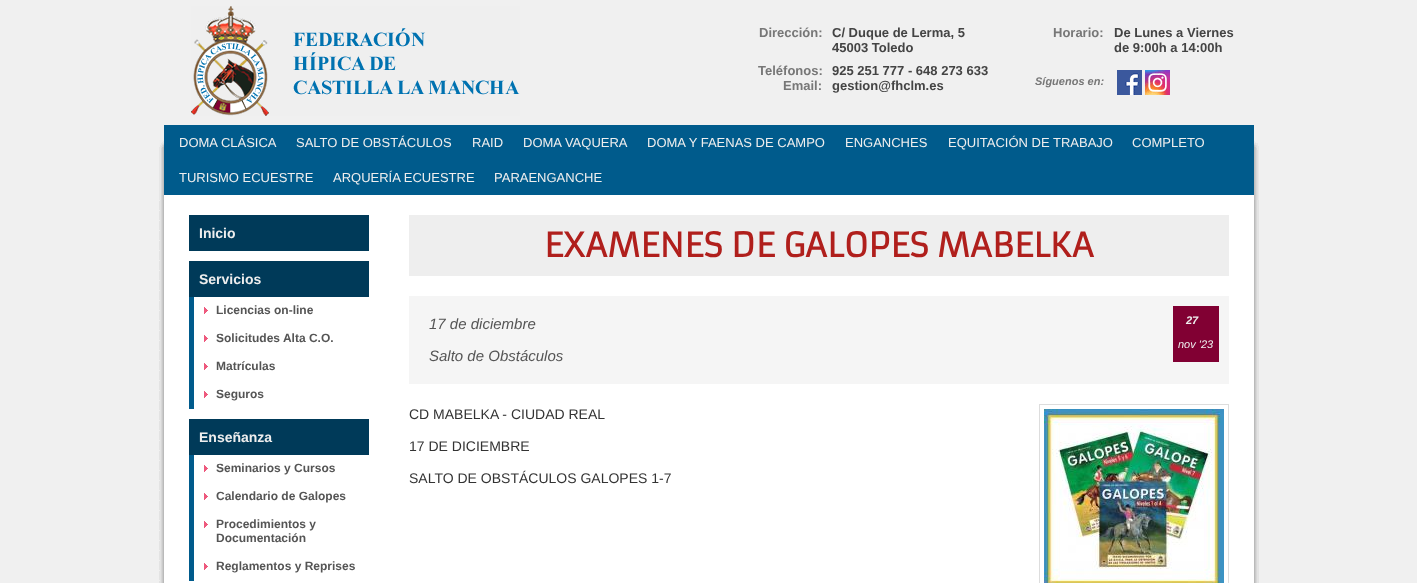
async function draw(canvas) {
  canvas.width = 1417;
  canvas.height = 583;
  const ctx = canvas.getContext('2d');
  ctx.miterLimit = 4;
  ctx.fontKerning = 'normal';
  function label(s, x, y, font, color) {
    ctx.font = font;
    ctx.fillStyle = color;
    ctx.fillText(s, x, y);
  }
  function rect(x, y, w, h, color) {
    ctx.fillStyle = color;
    ctx.fillRect(x, y, w, h);
  }
  async function image(src, x, y, w, h) {
    const img = new Image();
    img.src = src;
    await img.decode();
    ctx.drawImage(img, x, y, w, h);
  }

  rect(0, 0, 1417, 583, '#f0f0f0');
  await image('assets/img1.png', 159, 140, 1100, 60);
  await image('assets/img2.png', 191, 6, 329, 110);
  label('Dirección:', 759, 37, 'bold 13px Liberation Sans', '#777');
  label('C/ Duque de Lerma, 5', 832, 37, 'bold 13px Liberation Sans', '#444');
  label('45003 Toledo', 832, 52, 'bold 13px Liberation Sans', '#444');
  label('Teléfonos:', 758, 75, 'bold 13px Liberation Sans', '#777');
  label('925 251 777 - 648 273 633', 832, 75, 'bold 13px Liberation Sans', '#444');
  label('Email:', 783, 90, 'bold 13px Liberation Sans', '#777');
  label('gestion@fhclm.es', 832, 90, 'bold 13px Liberation Sans', '#444');
  label('Horario:', 1053, 37, 'bold 13px Liberation Sans', '#777');
  label('De Lunes a Viernes', 1114, 37, 'bold 13px Liberation Sans', '#444');
  label('de 9:00h a 14:00h', 1114, 52, 'bold 13px Liberation Sans', '#444');
  label('Síguenos en:', 1035, 85, 'italic bold 11px Liberation Sans', '#777');
  await image('assets/img3.png', 1117, 70, 25, 25);
  await image('assets/img4.png', 1145, 70, 25, 25);
  rect(164, 125, 1090, 70, '#005b8c');
  label('DOMA CLÁSICA', 179, 147, '13px Liberation Sans', '#eee');
  label('SALTO DE OBSTÁCULOS', 296, 147, '13px Liberation Sans', '#eee');
  label('RAID', 472, 147, '13px Liberation Sans', '#eee');
  label('DOMA VAQUERA', 523, 147, '13px Liberation Sans', '#eee');
  label('DOMA Y FAENAS DE CAMPO', 647, 147, '13px Liberation Sans', '#eee');
  label('ENGANCHES', 845, 147, '13px Liberation Sans', '#eee');
  label('EQUITACIÓN DE TRABAJO', 948, 147, '13px Liberation Sans', '#eee');
  label('COMPLETO', 1132, 147, '13px Liberation Sans', '#eee');
  label('TURISMO ECUESTRE', 179, 182, '13px Liberation Sans', '#eee');
  label('ARQUERÍA ECUESTRE', 333, 182, '13px Liberation Sans', '#eee');
  label('PARAENGANCHE', 494, 182, '13px Liberation Sans', '#eee');
  await image('assets/img5.png', 159, 200, 1100, 383);
  rect(189, 215, 180, 36, '#003a59');
  label('Inicio', 199, 238, 'bold 14px Liberation Sans', '#eee');
  rect(189, 261, 180, 36, '#003a59');
  label('Servicios', 199, 284, 'bold 14px Liberation Sans', '#eee');
  rect(189, 297, 5, 112, '#005b8c');
  await image('assets/img6.png', 204, 307, 4, 7);
  label('Licencias on-line', 216, 314, 'bold 12px Liberation Sans', '#555');
  await image('assets/img6.png', 204, 335, 4, 7);
  label('Solicitudes Alta C.O.', 216, 342, 'bold 12px Liberation Sans', '#555');
  await image('assets/img6.png', 204, 363, 4, 7);
  label('Matrículas', 216, 370, 'bold 12px Liberation Sans', '#555');
  await image('assets/img6.png', 204, 391, 4, 7);
  label('Seguros', 216, 398, 'bold 12px Liberation Sans', '#555');
  rect(189, 419, 180, 36, '#003a59');
  label('Enseñanza', 199, 442, 'bold 14px Liberation Sans', '#eee');
  rect(189, 455, 5, 126, '#005b8c');
  await image('assets/img6.png', 204, 465, 4, 7);
  label('Seminarios y Cursos', 216, 472, 'bold 12px Liberation Sans', '#555');
  await image('assets/img6.png', 204, 493, 4, 7);
  label('Calendario de Galopes', 216, 500, 'bold 12px Liberation Sans', '#555');
  await image('assets/img6.png', 204, 521, 4, 7);
  label('Procedimientos y', 216, 528, 'bold 12px Liberation Sans', '#555');
  label('Documentación', 216, 542, 'bold 12px Liberation Sans', '#555');
  await image('assets/img6.png', 204, 563, 4, 7);
  label('Reglamentos y Reprises', 216, 570, 'bold 12px Liberation Sans', '#555');
  rect(409, 215, 820, 61, '#eee');
  label('EXAMENES DE GALOPES MABELKA', 544, 257, 'bold 33px Armata', '#b01f1c');
  rect(409, 296, 820, 88, '#f5f5f5');
  label('17 de diciembre', 429, 329, 'italic 15px Liberation Sans', '#555');
  rect(1173, 306, 46, 56, '#810033');
  label('27', 1186, 324, 'italic bold 11px Liberation Sans', '#eee');
  label('nov \'23', 1178, 348, 'italic 11px Liberation Sans', '#eee');
  label('Salto de Obstáculos', 429, 361, 'italic 15px Liberation Sans', '#555');
  label('CD MABELKA - CIUDAD REAL', 409, 419, '14px Liberation Sans', '#333');
  label('17 DE DICIEMBRE', 409, 451, '14px Liberation Sans', '#333');
  label('SALTO DE OBSTÁCULOS GALOPES 1-7', 409, 483, '14px Liberation Sans', '#333');
  ctx.strokeStyle = '#ddd';
  ctx.strokeRect(1039.5, 404.5, 189, 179);
  await image('assets/img7.png', 1044, 409, 180, 174);
}

draw(document.querySelector('canvas'));
